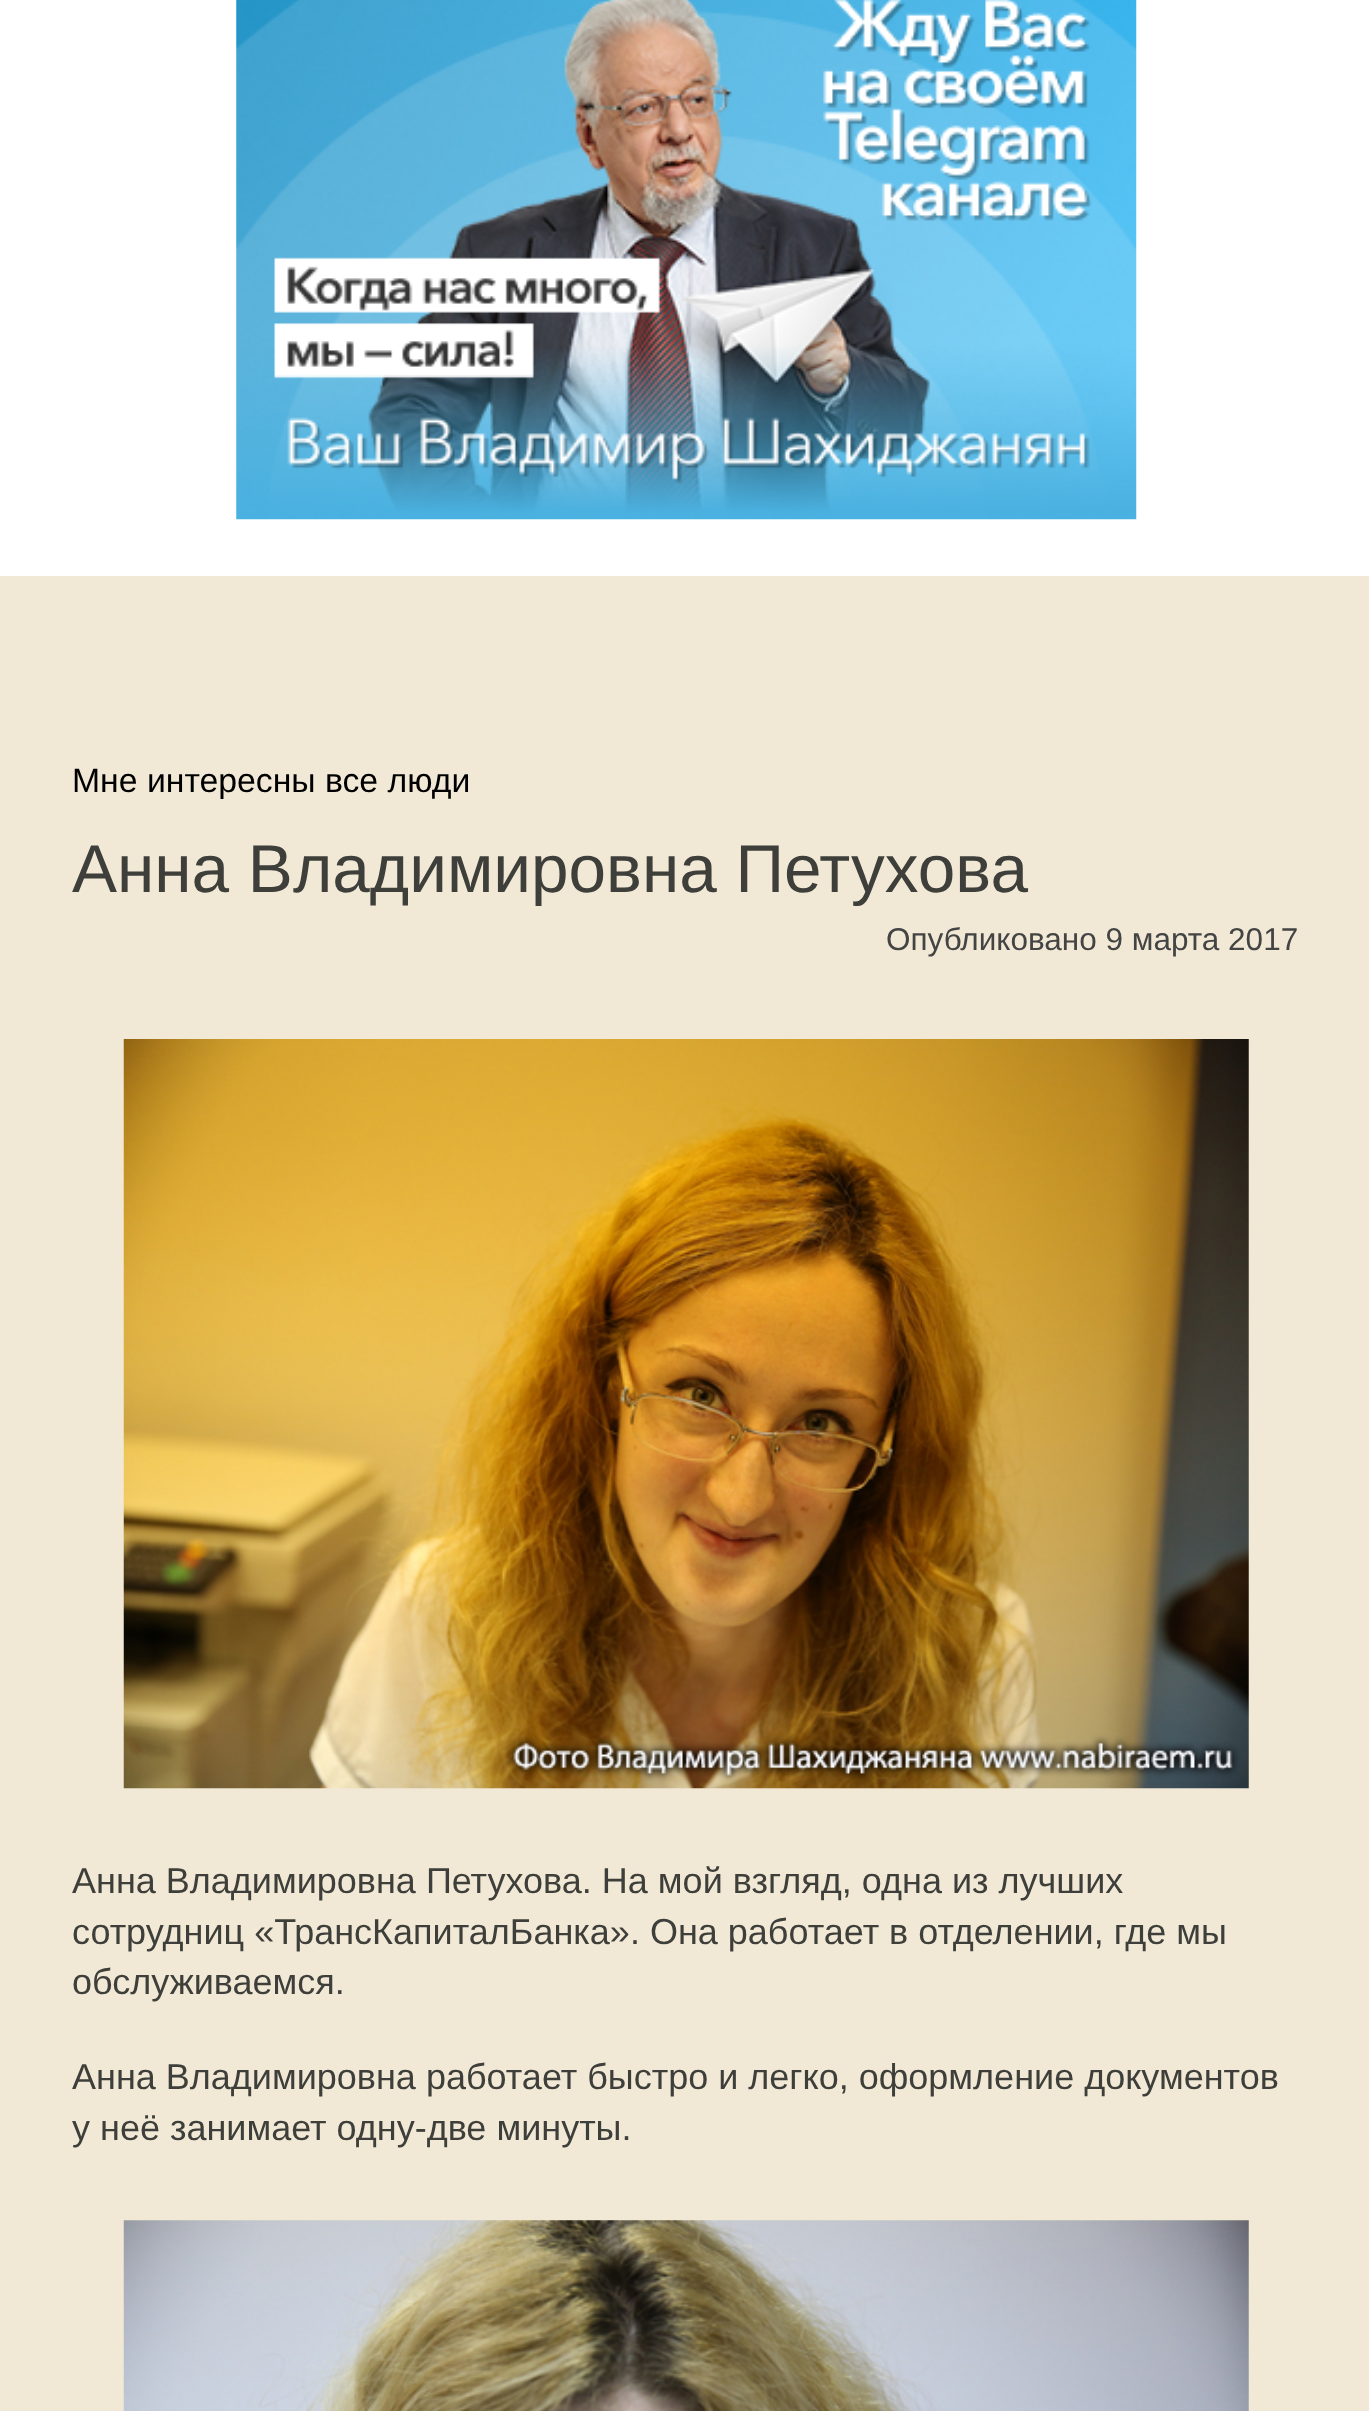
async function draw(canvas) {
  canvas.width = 1369;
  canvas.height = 2411;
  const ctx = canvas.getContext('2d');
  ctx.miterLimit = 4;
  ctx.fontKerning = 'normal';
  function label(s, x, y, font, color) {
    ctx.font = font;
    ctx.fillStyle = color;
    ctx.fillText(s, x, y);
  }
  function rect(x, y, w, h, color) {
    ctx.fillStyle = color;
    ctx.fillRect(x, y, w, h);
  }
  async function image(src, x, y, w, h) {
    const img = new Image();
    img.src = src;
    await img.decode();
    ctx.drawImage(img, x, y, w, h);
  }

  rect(0, 0, 1369, 2411, '#fff');
  await image('assets/img1.png', 236, 0, 901, 520);
  rect(0, 576, 1369, 1835, '#f1e9d6');
  label('Мне интересны все люди', 72, 792, '33.75px Liberation Sans', '#000');
  label('Анна Владимировна Петухова', 72, 892, '67.5px Liberation Sans', '#3e3f3a');
  label('Опубликовано 9 марта 2017', 886, 950, '31.5px Liberation Sans', '#444');
  await image('assets/img2.png', 123, 1039, 1126, 750);
  label('Анна Владимировна Петухова. На мой взгляд, одна из лучших', 72, 1893, '36px Liberation Sans', '#3e3f3a');
  label('сотрудниц «ТрансКапиталБанка». Она работает в отделении, где мы', 72, 1944, '36px Liberation Sans', '#3e3f3a');
  label('обслуживаемся.', 72, 1994, '36px Liberation Sans', '#3e3f3a');
  label('Анна Владимировна работает быстро и легко, оформление документов', 72, 2089, '36px Liberation Sans', '#3e3f3a');
  label('у неё занимает одну-две минуты.', 72, 2140, '36px Liberation Sans', '#3e3f3a');
  await image('assets/img3.png', 123, 2220, 1126, 191);
}

draw(document.querySelector('canvas'));
